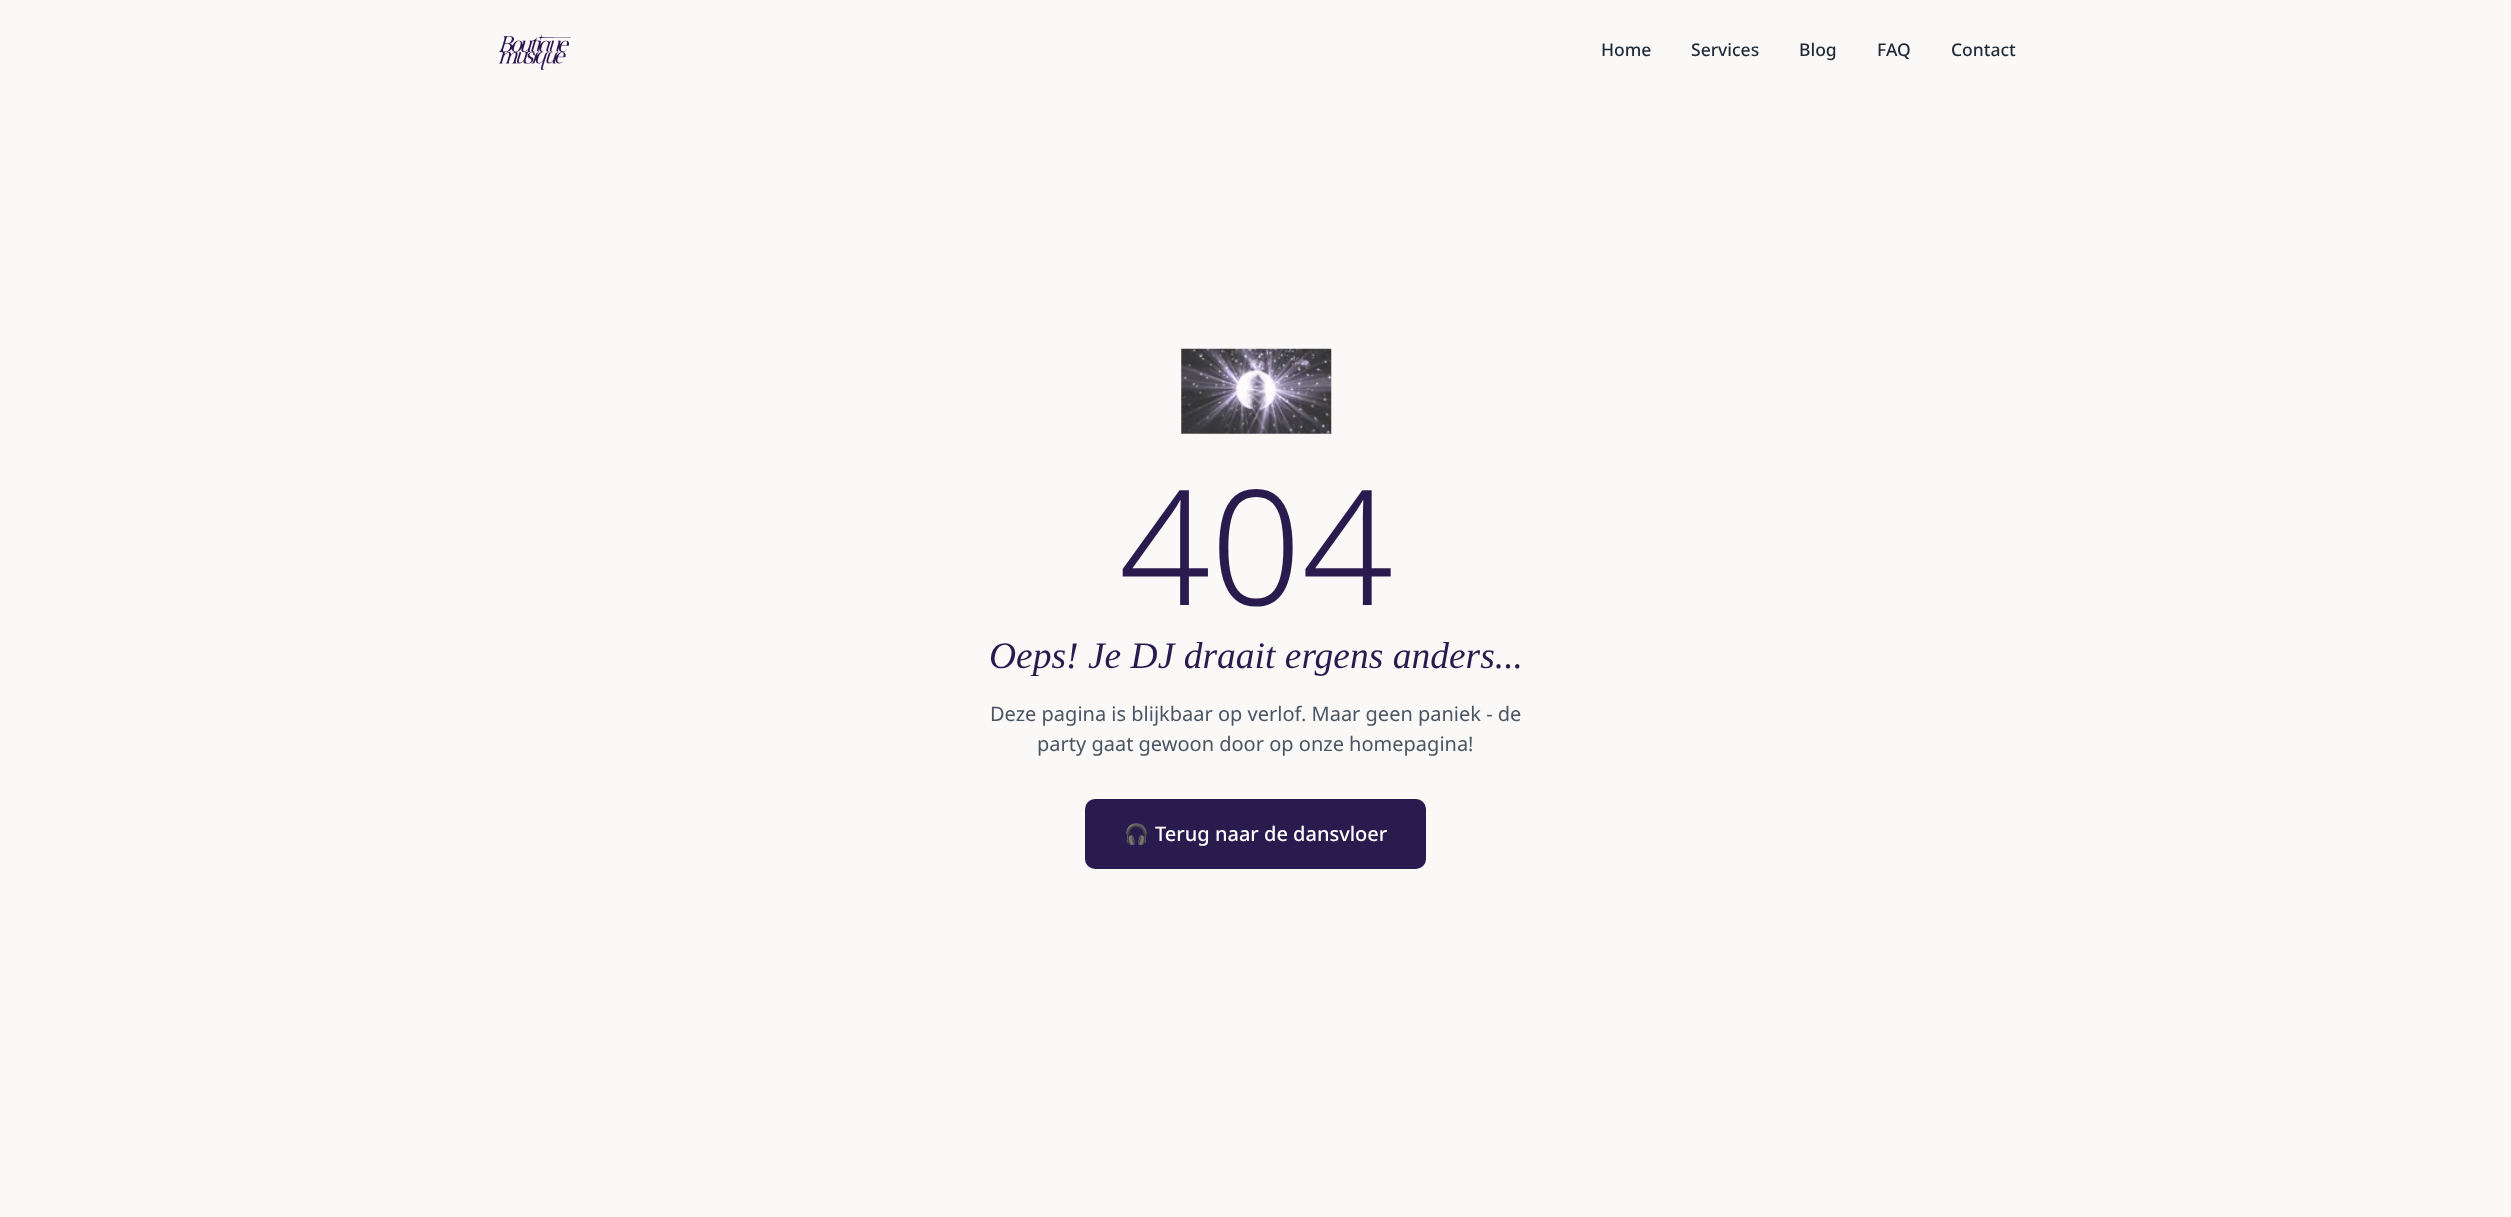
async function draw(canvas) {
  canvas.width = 2511;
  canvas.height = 1217;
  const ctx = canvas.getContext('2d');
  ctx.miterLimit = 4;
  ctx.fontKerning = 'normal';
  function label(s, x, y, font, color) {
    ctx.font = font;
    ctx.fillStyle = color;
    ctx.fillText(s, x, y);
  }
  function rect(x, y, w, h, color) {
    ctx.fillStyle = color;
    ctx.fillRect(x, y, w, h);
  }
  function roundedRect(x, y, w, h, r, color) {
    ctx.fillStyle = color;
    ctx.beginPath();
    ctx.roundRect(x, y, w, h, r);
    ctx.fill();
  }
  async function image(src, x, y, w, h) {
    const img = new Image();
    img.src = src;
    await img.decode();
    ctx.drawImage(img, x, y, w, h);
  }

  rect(0, 0, 2511, 1217, '#faf9f7');
  await image('assets/img1.png', 498, 34, 73, 36);
  label('Home', 1601, 56, '500 17.5px Noto Sans', '#1f2937');
  label('Services', 1691, 56, '500 17.5px Noto Sans', '#1f2937');
  label('Blog', 1799, 56, '500 17.5px Noto Sans', '#1f2937');
  label('FAQ', 1877, 56, '500 17.5px Noto Sans', '#1f2937');
  label('Contact', 1951, 56, '500 17.5px Noto Sans', '#1f2937');
  await image('assets/img2.png', 1181, 348, 151, 86);
  label('404', 1119, 605, '300 160px Noto Sans', '#2a1b4e');
  label('Oeps! Je DJ draait ergens anders...', 989, 668, 'italic 37.5px Liberation Serif', '#2a1b4e');
  label('Deze pagina is blijkbaar op verlof. Maar geen paniek - de', 990, 721, '20px Noto Sans', '#4b5563');
  label('party gaat gewoon door op onze homepagina!', 1037, 751, '20px Noto Sans', '#4b5563');
  roundedRect(1085, 799, 341, 70, 10, '#2a1b4e');
  label('🎧', 1124, 841, '20px Noto Color Emoji', '#fff');
  label('Terug naar de dansvloer', 1155, 841, '500 20px Noto Sans', '#fff');
}

draw(document.querySelector('canvas'));
